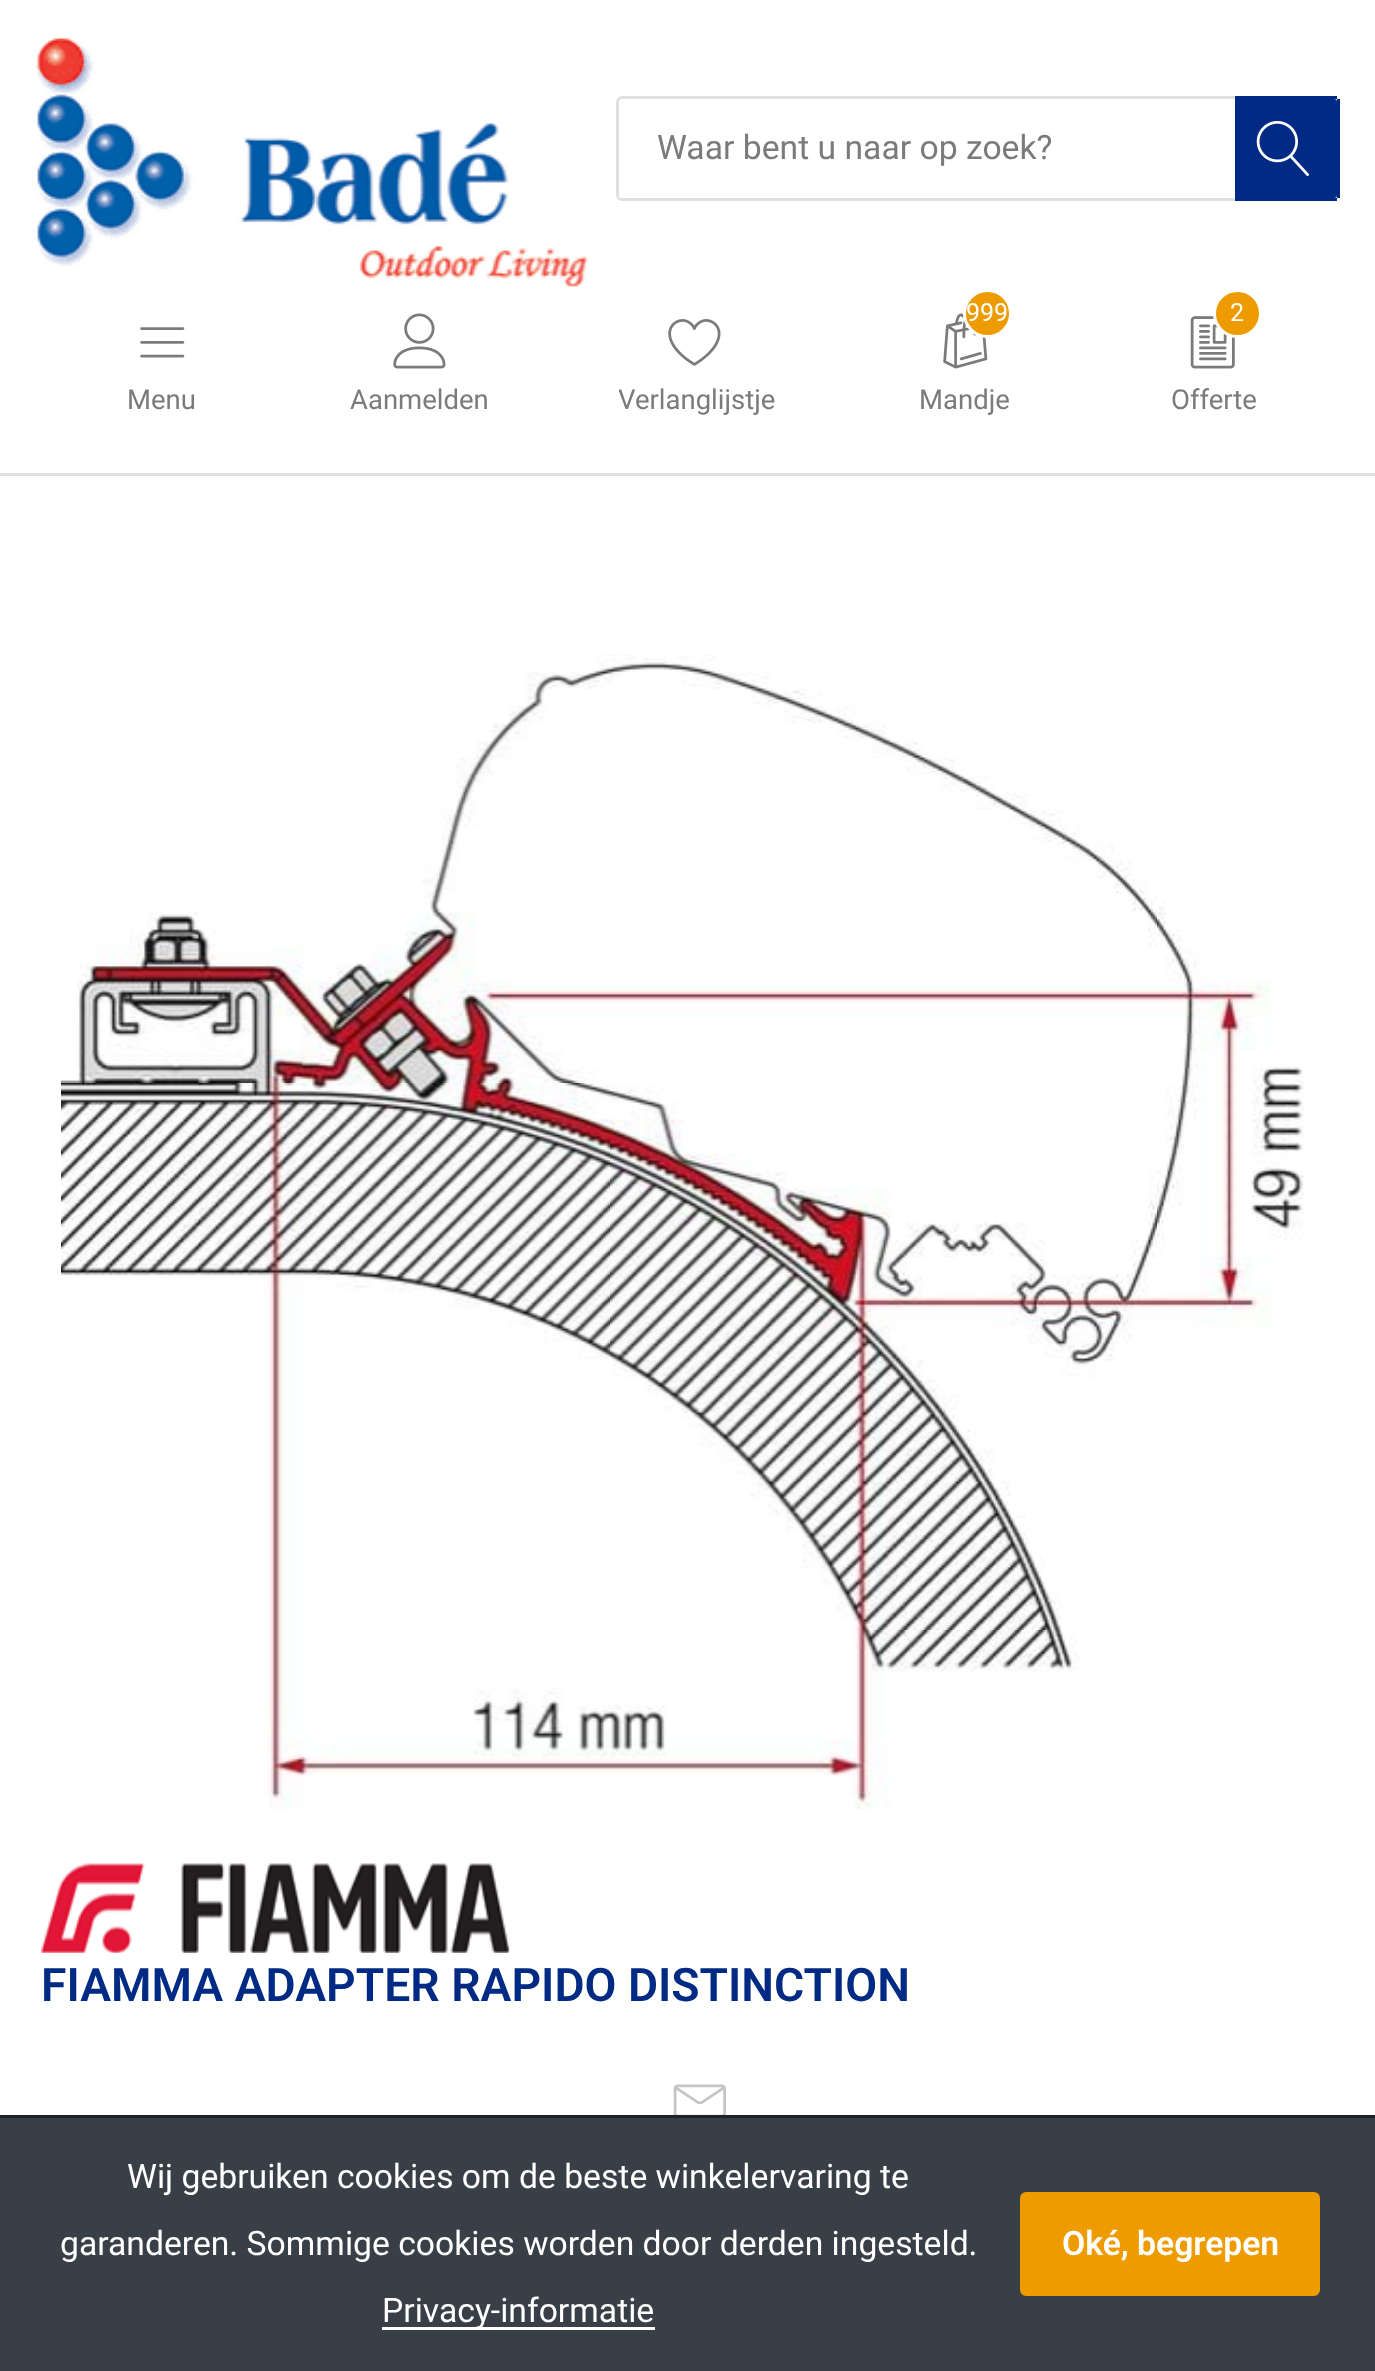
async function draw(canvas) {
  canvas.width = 1375;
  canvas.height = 2371;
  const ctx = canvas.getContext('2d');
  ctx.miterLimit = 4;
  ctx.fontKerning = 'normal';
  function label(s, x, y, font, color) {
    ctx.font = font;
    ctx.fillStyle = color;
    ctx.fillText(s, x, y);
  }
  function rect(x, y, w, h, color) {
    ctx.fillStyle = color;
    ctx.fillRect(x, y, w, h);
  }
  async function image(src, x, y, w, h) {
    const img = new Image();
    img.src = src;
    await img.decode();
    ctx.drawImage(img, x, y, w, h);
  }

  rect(0, 0, 1375, 2371, '#fff');
  rect(0, 473, 1375, 3, '#e0e0e0');
  await image('assets/img1.png', 35, 38, 553, 249);
  ctx.beginPath();
  ctx.roundRect(617.5, 97.5, 720, 102, 4.5);
  ctx.strokeStyle = '#e0e0e0';
  ctx.lineWidth = 3;
  ctx.stroke();
  label('Waar bent u naar op zoek?', 657, 159, '33.7px Roboto', '#7b7b7b');
  ctx.fillStyle = '#002a84';
  ctx.beginPath();
  ctx.roundRect(1235, 99, 102, 99, [0, 3, 3, 0]);
  ctx.fill();
  rect(1235, 96, 102, 3, '#002a84');
  rect(1337, 99, 3, 99, '#002a84');
  rect(1235, 198, 102, 3, '#002a84');
  await image('assets/img2.png', 1256, 121, 53, 55);
  await image('assets/img3.png', 140, 327, 45, 31);
  label('Menu', 127, 409, '27.5px Roboto', '#7b7b7b');
  await image('assets/img4.png', 393, 313, 53, 56);
  label('Aanmelden', 350, 409, '27.5px Roboto', '#7b7b7b');
  await image('assets/img5.png', 668, 319, 53, 47);
  ctx.save();
  ctx.beginPath();
  ctx.rect(619, 382, 157, 36);
  ctx.clip();
  label('Verlanglijstje', 618, 409, '27.5px Roboto', '#7b7b7b');
  ctx.restore();
  await image('assets/img6.png', 943, 313, 45, 56);
  ctx.fillStyle = '#ee9b00';
  ctx.beginPath();
  ctx.arc(987.5, 313.5, 23, 0, 2 * Math.PI);
  ctx.fill();
  ctx.strokeStyle = '#fff';
  ctx.stroke();
  label('999', 966, 321, '25px Roboto', '#fff');
  label('Mandje', 919, 409, '27.5px Roboto', '#7b7b7b');
  await image('assets/img7.png', 1190, 316, 45, 53);
  ctx.fillStyle = '#ee9b00';
  ctx.beginPath();
  ctx.arc(1237.5, 313.5, 23, 0, 2 * Math.PI);
  ctx.fill();
  ctx.stroke();
  label('2', 1230, 321, '25px Roboto', '#fff');
  label('Offerte', 1171, 409, '27.5px Roboto', '#7b7b7b');
  await image('assets/img8.png', 61, 654, 1243, 1156);
  await image('assets/img9.png', 41, 1863, 469, 90);
  label('FIAMMA ADAPTER RAPIDO DISTINCTION', 41, 2001, '600 46.25px Roboto', '#002a84');
  await image('assets/img10.png', 673, 2084, 53, 31);
  rect(0, 2118, 1375, 253, '#393f46');
  rect(0, 2115, 1375, 3, '#222');
  label('Wij gebruiken cookies om de beste winkelervaring te', 127, 2188, '33.7px Roboto', '#fff');
  label('garanderen. Sommige cookies worden door derden ingesteld.', 60, 2255, '33.7px Roboto', '#fff');
  rect(382, 2327, 273, 3, '#fff');
  label('Privacy-informatie', 382, 2322, '33.7px Roboto', '#fff');
  ctx.fillStyle = '#ee9b00';
  ctx.beginPath();
  ctx.roundRect(1021.5, 2193.5, 297, 101, 4.5);
  ctx.fill();
  ctx.strokeStyle = '#ee9b00';
  ctx.stroke();
  label('Oké, begrepen', 1062, 2255, '600 33.7px Roboto', '#fff');
}

draw(document.querySelector('canvas'));
